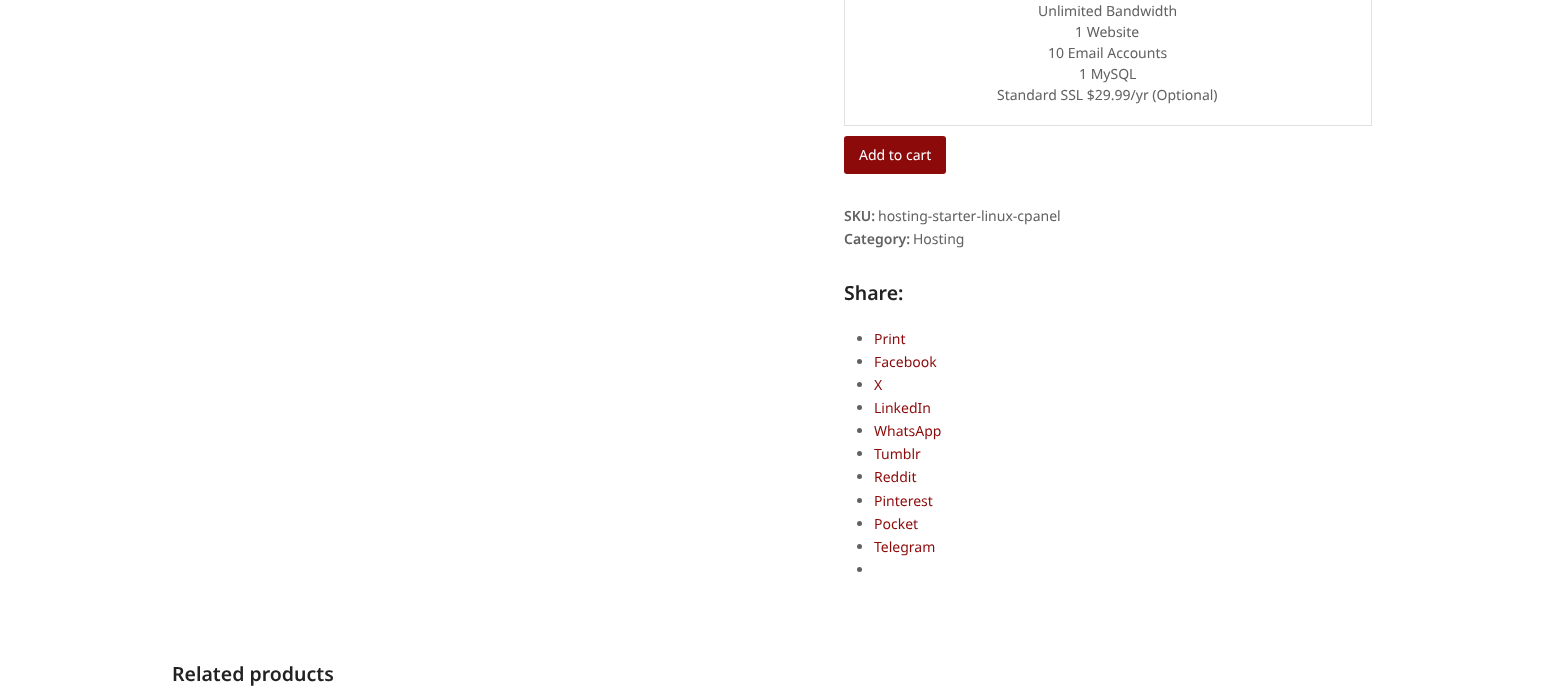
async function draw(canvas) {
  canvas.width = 1543;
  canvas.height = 691;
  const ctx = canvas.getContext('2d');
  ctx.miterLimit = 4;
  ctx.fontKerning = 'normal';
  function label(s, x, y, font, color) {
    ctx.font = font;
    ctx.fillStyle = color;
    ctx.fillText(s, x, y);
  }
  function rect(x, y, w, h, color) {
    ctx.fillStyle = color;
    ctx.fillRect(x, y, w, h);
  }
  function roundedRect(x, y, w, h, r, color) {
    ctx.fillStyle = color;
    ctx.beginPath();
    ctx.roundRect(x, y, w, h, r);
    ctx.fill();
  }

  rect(0, 0, 1543, 691, '#fff');
  ctx.strokeStyle = '#e0e0e0';
  ctx.strokeRect(844.5, -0.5, 527, 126);
  label('Unlimited Bandwidth', 1038, 16, '14px Noto Sans', '#616161');
  label('1 Website', 1075, 37, '14px Noto Sans', '#616161');
  label('10 Email Accounts', 1048, 58, '14px Noto Sans', '#616161');
  label('1 MySQL', 1079, 79, '14px Noto Sans', '#616161');
  label('Standard SSL $29.99/yr (Optional)', 997, 100, '14px Noto Sans', '#616161');
  roundedRect(844, 136, 102, 38, 3, '#8c0a0a');
  label('Add to cart', 859, 160, '14px Noto Sans', '#fff');
  label('SKU:', 844, 221, '600 14px Noto Sans', '#616161');
  label('hosting-starter-linux-cpanel', 878, 221, '14px Noto Sans', '#616161');
  label('Category:', 844, 244, '600 14px Noto Sans', '#616161');
  label('Hosting', 913, 244, '14px Noto Sans', '#616161');
  label('Share:', 844, 300, '600 19.5px Noto Sans', '#222');
  ctx.fillStyle = '#616161';
  ctx.beginPath();
  ctx.arc(859.5, 338.5, 2.5, 0, 2 * Math.PI);
  ctx.fill();
  label('Print', 874, 344, '14px Noto Sans', '#8c0a0a');
  ctx.fillStyle = '#616161';
  ctx.beginPath();
  ctx.arc(859.5, 361.5, 2.5, 0, 2 * Math.PI);
  ctx.fill();
  label('Facebook', 874, 367, '14px Noto Sans', '#8c0a0a');
  ctx.fillStyle = '#616161';
  ctx.beginPath();
  ctx.arc(859.5, 384.5, 2.5, 0, 2 * Math.PI);
  ctx.fill();
  label('X', 874, 390, '14px Noto Sans', '#8c0a0a');
  ctx.fillStyle = '#616161';
  ctx.beginPath();
  ctx.arc(859.5, 407.5, 2.5, 0, 2 * Math.PI);
  ctx.fill();
  label('LinkedIn', 874, 413, '14px Noto Sans', '#8c0a0a');
  ctx.fillStyle = '#616161';
  ctx.beginPath();
  ctx.arc(859.5, 430.5, 2.5, 0, 2 * Math.PI);
  ctx.fill();
  label('WhatsApp', 874, 436, '14px Noto Sans', '#8c0a0a');
  ctx.fillStyle = '#616161';
  ctx.beginPath();
  ctx.arc(859.5, 453.5, 2.5, 0, 2 * Math.PI);
  ctx.fill();
  label('Tumblr', 874, 459, '14px Noto Sans', '#8c0a0a');
  ctx.fillStyle = '#616161';
  ctx.beginPath();
  ctx.arc(859.5, 476.5, 2.5, 0, 2 * Math.PI);
  ctx.fill();
  label('Reddit', 874, 482, '14px Noto Sans', '#8c0a0a');
  ctx.fillStyle = '#616161';
  ctx.beginPath();
  ctx.arc(859.5, 500.5, 2.5, 0, 2 * Math.PI);
  ctx.fill();
  label('Pinterest', 874, 506, '14px Noto Sans', '#8c0a0a');
  ctx.fillStyle = '#616161';
  ctx.beginPath();
  ctx.arc(859.5, 523.5, 2.5, 0, 2 * Math.PI);
  ctx.fill();
  label('Pocket', 874, 529, '14px Noto Sans', '#8c0a0a');
  ctx.fillStyle = '#616161';
  ctx.beginPath();
  ctx.arc(859.5, 546.5, 2.5, 0, 2 * Math.PI);
  ctx.fill();
  label('Telegram', 874, 552, '14px Noto Sans', '#8c0a0a');
  ctx.fillStyle = '#616161';
  ctx.beginPath();
  ctx.arc(859.5, 569.5, 2.5, 0, 2 * Math.PI);
  ctx.fill();
  label('Related products', 172, 681, '600 19.5px Noto Sans', '#222');
}

draw(document.querySelector('canvas'));
